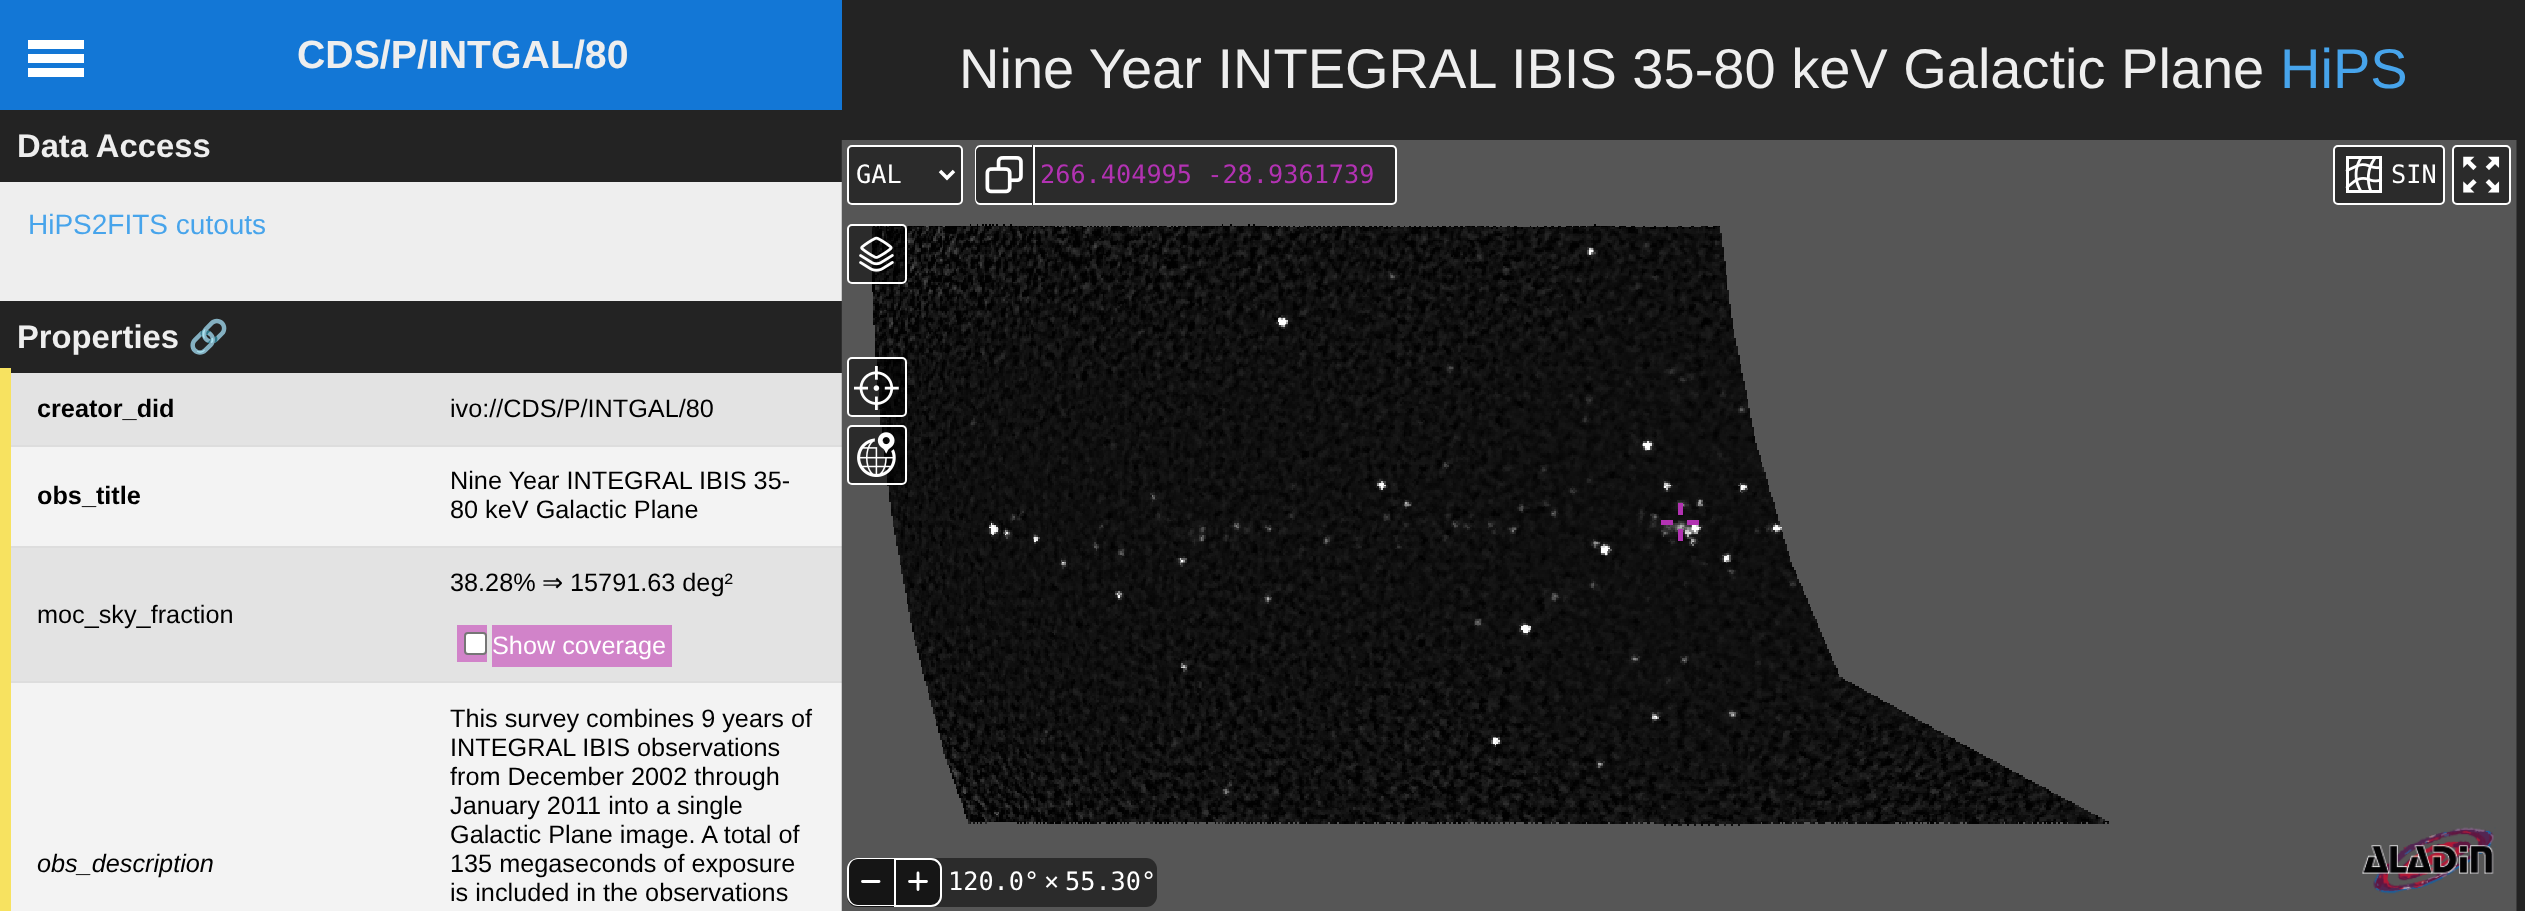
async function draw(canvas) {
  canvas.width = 2525;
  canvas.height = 911;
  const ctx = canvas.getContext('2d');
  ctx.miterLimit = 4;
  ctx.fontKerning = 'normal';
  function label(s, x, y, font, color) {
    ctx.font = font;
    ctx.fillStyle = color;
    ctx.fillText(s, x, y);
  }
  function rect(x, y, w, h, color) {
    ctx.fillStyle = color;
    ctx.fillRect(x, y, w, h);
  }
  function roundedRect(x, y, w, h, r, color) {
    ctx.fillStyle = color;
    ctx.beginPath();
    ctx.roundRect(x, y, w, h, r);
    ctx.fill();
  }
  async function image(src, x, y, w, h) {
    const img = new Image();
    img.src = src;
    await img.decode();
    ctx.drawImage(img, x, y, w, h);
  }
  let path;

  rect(0, 0, 2525, 911, '#232323');
  rect(0, 0, 842, 110, '#1377d6');
  label('CDS/P/INTGAL/80', 297, 68, 'bold 39.25px Liberation Sans', '#eee');
  label('Data Access', 17, 157, 'bold 32.75px Liberation Sans', '#eee');
  rect(0, 182, 842, 119, '#eee');
  label('HiPS2FITS cutouts', 28, 234, '28px Liberation Sans', '#47a4eb');
  label('Properties', 17, 348, 'bold 32.75px Liberation Sans', '#eee');
  label('🔗', 188, 348, 'bold 32.75px Noto Color Emoji', '#47a4eb');
  rect(11, 373, 831, 72, '#e3e3e3');
  rect(5, 445, 837, 2, '#ddd');
  label('creator_did', 37, 417, 'bold 25.25px Liberation Sans', '#000');
  label('ivo://CDS/P/INTGAL/80', 450, 417, '25.25px Liberation Sans', '#000');
  rect(11, 447, 831, 99, '#f3f3f3');
  rect(5, 546, 837, 2, '#ddd');
  label('obs_title', 37, 504, 'bold 25.25px Liberation Sans', '#000');
  label('Nine Year INTEGRAL IBIS 35-', 450, 489, '25.25px Liberation Sans', '#000');
  label('80 keV Galactic Plane', 450, 518, '25.25px Liberation Sans', '#000');
  rect(11, 548, 831, 133, '#e3e3e3');
  rect(5, 681, 837, 2, '#ddd');
  label('moc_sky_fraction', 37, 623, '25.25px Liberation Sans', '#000');
  label('38.28%', 450, 591, '25.25px Liberation Sans', '#000');
  label('⇒', 542, 591, '25.25px DejaVu Sans', '#000');
  label('15791.63 deg²', 570, 591, '25.25px Liberation Sans', '#000');
  rect(457, 625, 30, 37, '#d183c9');
  rect(492, 625, 180, 42, '#d183c9');
  ctx.fillStyle = '#fff';
  ctx.beginPath();
  ctx.roundRect(465, 633, 21, 21, 3);
  ctx.fill();
  ctx.strokeStyle = '#767676';
  ctx.lineWidth = 2;
  ctx.stroke();
  label('Show coverage', 492, 654, '25.25px Liberation Sans', '#fff');
  rect(11, 683, 831, 228, '#f3f3f3');
  rect(0, 368, 11, 543, '#f7e260');
  label('obs_description', 37, 872, 'italic 25.25px Liberation Sans', '#000');
  label('This survey combines 9 years of', 450, 727, '25.25px Liberation Sans', '#000');
  label('INTEGRAL IBIS observations', 450, 756, '25.25px Liberation Sans', '#000');
  label('from December 2002 through', 450, 785, '25.25px Liberation Sans', '#000');
  label('January 2011 into a single', 450, 814, '25.25px Liberation Sans', '#000');
  label('Galactic Plane image. A total of', 450, 843, '25.25px Liberation Sans', '#000');
  label('135 megaseconds of exposure', 450, 872, '25.25px Liberation Sans', '#000');
  label('is included in the observations', 450, 901, '25.25px Liberation Sans', '#000');
  label('Nine Year INTEGRAL IBIS 35-80 keV Galactic Plane', 959, 88, '56px Liberation Sans', '#eee');
  label('HiPS', 2280, 88, '56px Liberation Sans', '#47a4eb');
  await image('assets/img1.png', 841, 140, 1676, 771);
  ctx.fillStyle = '#00000080';
  ctx.beginPath();
  ctx.roundRect(848, 146, 114, 58, 4);
  ctx.fill();
  ctx.strokeStyle = '#fff';
  ctx.stroke();
  path = new Path2D('M940 171L947 178L954 171');
  ctx.lineWidth = 3.5;
  ctx.stroke(path);
  label('GAL', 856, 183, '25.25px DejaVu Sans Mono', '#fff');
  ctx.fillStyle = '#00000080';
  ctx.beginPath();
  ctx.roundRect(975, 145, 58, 60, [5, 0, 0, 5]);
  ctx.fill();
  ctx.fillStyle = '#fff';
  path = new Path2D('M980 145H1032V205H980C977 205 975 202 975 199V151C975 148 977 145 980 145ZM980 147H1032V203H980C978 203 976 201 976 199V151C976 149 978 147 980 147Z');
  ctx.fill(path, 'evenodd');
  await image('assets/img2.png', 985, 156, 38, 38);
  ctx.fillStyle = '#2b2b2b';
  ctx.beginPath();
  ctx.roundRect(1034, 146, 362, 58, [0, 4, 4, 0]);
  ctx.fill();
  ctx.lineWidth = 2;
  ctx.stroke();
  label('266.404995 -28.9361739', 1040, 183, '25.25px DejaVu Sans Mono', '#b232b2');
  ctx.fillStyle = '#2b2b2b';
  ctx.beginPath();
  ctx.roundRect(2334, 146, 110, 58, 4);
  ctx.fill();
  ctx.stroke();
  await image('assets/img3.png', 2345, 156, 38, 37);
  label('SIN', 2391, 183, '25.25px DejaVu Sans Mono', '#fff');
  ctx.fillStyle = '#2b2b2b';
  ctx.beginPath();
  ctx.roundRect(2453, 146, 57, 58, 4);
  ctx.fill();
  ctx.stroke();
  await image('assets/img4.png', 2463, 156, 37, 37);
  ctx.fillStyle = '#00000080';
  ctx.beginPath();
  ctx.roundRect(848, 225, 58, 58, 4);
  ctx.fill();
  ctx.stroke();
  await image('assets/img5.png', 859, 236, 35, 36);
  ctx.beginPath();
  ctx.roundRect(848, 358, 58, 58, 4);
  ctx.fill();
  ctx.stroke();
  await image('assets/img6.png', 854, 366, 45, 44);
  ctx.beginPath();
  ctx.roundRect(848, 426, 58, 58, 4);
  ctx.fill();
  ctx.stroke();
  await image('assets/img7.png', 857, 432, 39, 45);
  rect(1678, 503, 5, 12, '#b232b2');
  rect(1661, 520, 12, 5, '#b232b2');
  rect(1687, 520, 12, 5, '#b232b2');
  rect(1678, 529, 5, 12, '#b232b2');
  roundedRect(847, 858, 310, 49, 11, '#2b2b2b');
  ctx.fillStyle = '#00000080';
  ctx.beginPath();
  ctx.roundRect(847, 858, 47, 49, [11, 0, 0, 11]);
  ctx.fill();
  ctx.fillStyle = '#fff';
  path = new Path2D('M858 858H894V906H858C852 906 847 901 847 895V869C847 863 852 858 858 858ZM858 859H894V905H858C853 905 849 901 849 895V869C849 863 853 859 858 859Z');
  ctx.fill(path, 'evenodd');
  path = new Path2D('M862.5 881.5H879');
  ctx.lineWidth = 2.8;
  ctx.lineCap = 'round';
  ctx.lineJoin = 'round';
  ctx.stroke(path);
  ctx.fillStyle = '#161616';
  ctx.beginPath();
  ctx.roundRect(895, 859, 46, 47, [0, 10, 10, 0]);
  ctx.fill();
  ctx.lineWidth = 2;
  ctx.lineJoin = 'miter';
  ctx.stroke();
  path = new Path2D('M909.5 881.5H926.5M918 873V889.5');
  ctx.lineWidth = 2.8;
  ctx.lineJoin = 'round';
  ctx.stroke(path);
  label('120.0°', 948, 890, '25.25px DejaVu Sans Mono', '#fff');
  label('×', 1044, 890, '25.25px DejaVu Sans Mono', '#fff');
  label('55.30°', 1065, 890, '25.25px DejaVu Sans Mono', '#fff');
  await image('assets/img8.png', 2362, 827, 134, 67);
  rect(28, 68, 56, 9, '#fff');
  rect(28, 54, 56, 9, '#fff');
  rect(28, 40, 56, 9, '#fff');
}

draw(document.querySelector('canvas'));
